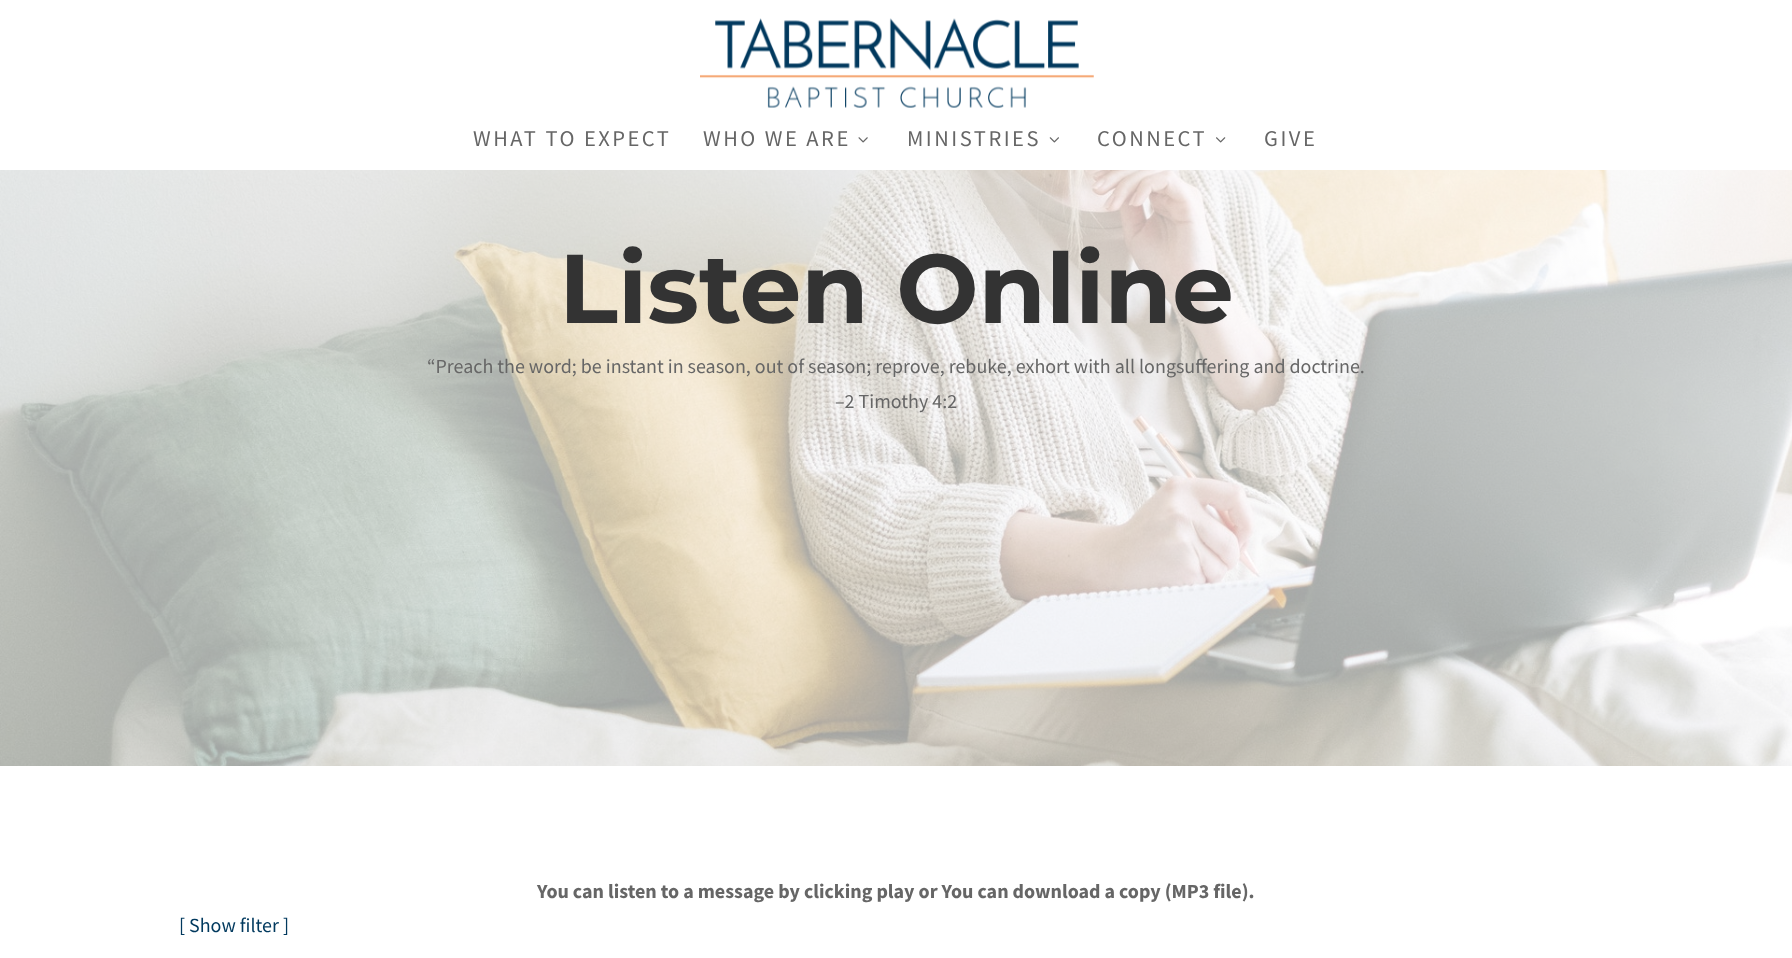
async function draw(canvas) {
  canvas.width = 1792;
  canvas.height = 958;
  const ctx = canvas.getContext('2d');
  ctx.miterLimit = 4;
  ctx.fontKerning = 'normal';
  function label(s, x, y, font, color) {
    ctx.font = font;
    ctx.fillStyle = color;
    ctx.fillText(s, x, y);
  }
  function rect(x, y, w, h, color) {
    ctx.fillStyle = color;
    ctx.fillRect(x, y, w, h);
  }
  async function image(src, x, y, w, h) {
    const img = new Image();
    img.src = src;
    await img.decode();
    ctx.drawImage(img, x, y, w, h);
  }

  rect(0, 0, 1792, 958, '#fff');
  await image('assets/img1.png', 700, 18, 394, 90);
  ctx.letterSpacing = '2.5px';
  label('WHAT TO EXPECT', 473, 146, '22.5px Source Sans Pro', '#666');
  label('WHO WE ARE', 703, 146, '22.5px Source Sans Pro', '#666');
  await image('assets/img2.png', 858, 137, 10, 6);
  label('MINISTRIES', 907, 146, '22.5px Source Sans Pro', '#666');
  await image('assets/img3.png', 1049, 137, 10, 6);
  label('CONNECT', 1097, 146, '22.5px Source Sans Pro', '#666');
  await image('assets/img4.png', 1216, 137, 10, 6);
  label('GIVE', 1264, 146, '22.5px Source Sans Pro', '#666');
  await image('assets/img5.png', 0, 170, 1792, 596);
  ctx.letterSpacing = '0px';
  label('Listen Online', 559, 323, '100 97.5px Montserrat', '#333');
  label('“Preach the word; be instant in season, out of season; reprove, rebuke, exhort with all longsuffering and doctrine.', 427, 373, '20px Source Sans Pro', '#666');
  label('–2 Timothy 4:2', 835, 408, '20px Source Sans Pro', '#666');
  label('You can listen to a message by clicking play or You can download a copy (MP3 file).', 537, 898, 'bold 20px Source Sans Pro', '#666');
  label('[ Show filter ]', 179, 932, '20px Source Sans Pro', '#01395e');
}

draw(document.querySelector('canvas'));
